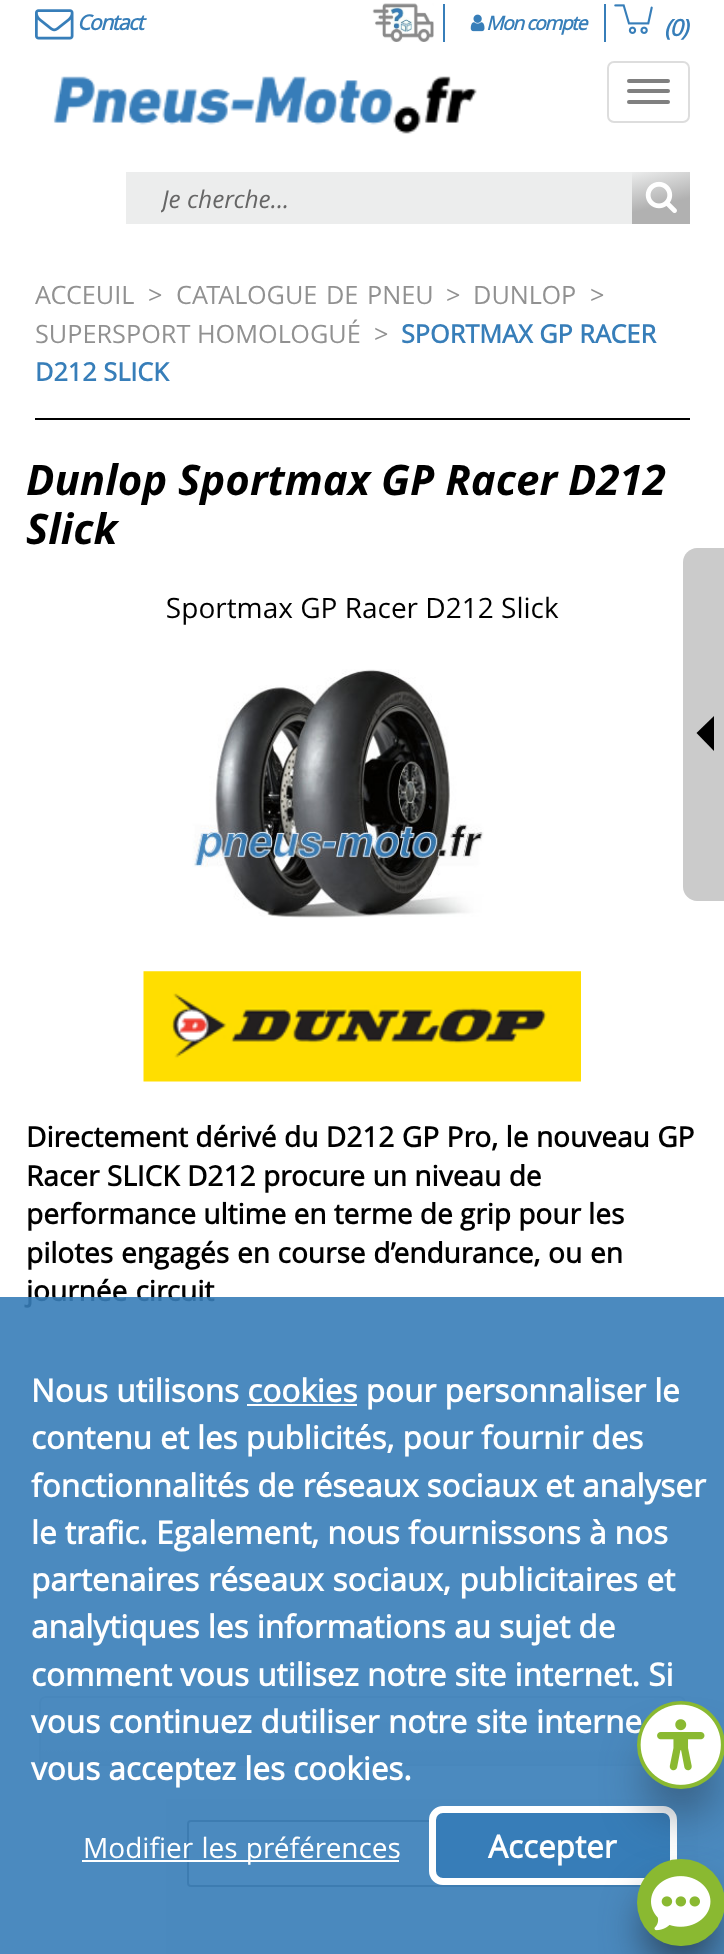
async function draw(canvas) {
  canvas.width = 724;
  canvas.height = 1954;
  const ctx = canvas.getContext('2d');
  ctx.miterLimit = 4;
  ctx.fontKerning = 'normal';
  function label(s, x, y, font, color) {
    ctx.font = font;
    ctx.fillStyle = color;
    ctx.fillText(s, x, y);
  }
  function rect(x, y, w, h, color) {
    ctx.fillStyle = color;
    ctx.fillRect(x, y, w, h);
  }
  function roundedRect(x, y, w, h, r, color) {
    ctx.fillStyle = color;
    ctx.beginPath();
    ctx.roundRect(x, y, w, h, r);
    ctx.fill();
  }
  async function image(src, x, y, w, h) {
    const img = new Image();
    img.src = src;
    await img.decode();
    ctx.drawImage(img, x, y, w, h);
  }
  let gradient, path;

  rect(0, 0, 724, 1954, '#fff');
  await image('assets/img1.png', 35, 9, 39, 31);
  ctx.letterSpacing = '-1.4px';
  label('Contact', 77, 30, 'italic bold 21px Open Sans', '#377eb9');
  rect(443, 4, 2, 38, '#377eb9');
  await image('assets/img2.png', 372, 3, 62, 39);
  rect(604, 4, 2, 38, '#377eb9');
  await image('assets/img3.png', 470, 14, 15, 18);
  label('Mon compte', 486, 30, 'italic bold 19.25px Open Sans', '#377eb9');
  await image('assets/img4.png', 614, 4, 39, 30);
  label('(0)', 664, 36, 'italic bold 23px Open Sans', '#377eb9');
  await image('assets/img5.png', 53, 76, 424, 58);
  ctx.beginPath();
  ctx.roundRect(608, 62, 81, 60, 6);
  ctx.strokeStyle = '#ddd';
  ctx.lineWidth = 2;
  ctx.stroke();
  roundedRect(627, 79, 43, 4, 2, '#808080');
  roundedRect(627, 89, 43, 4, 2, '#808080');
  roundedRect(627, 100, 43, 4, 2, '#808080');
  rect(126, 172, 506, 52, '#eceded');
  ctx.save();
  ctx.beginPath();
  ctx.rect(161, 182, 476, 33);
  ctx.clip();
  ctx.letterSpacing = '0px';
  label('Je cherche...', 162, 208, 'italic 24.5px Open Sans', '#666');
  ctx.restore();
  gradient = ctx.createLinearGradient(652, 166, 669, 231);
  gradient.addColorStop(0, '#eceded');
  gradient.addColorStop(0.6, '#b1b1b1');
  ctx.fillStyle = gradient;
  ctx.fillRect(632, 172, 58, 52);
  await image('assets/img6.png', 645, 181, 32, 32);
  rect(35, 418, 655, 2, '#000');
  ctx.letterSpacing = '0px';
  label('ACCEUIL', 35, 304, '25.25px Open Sans', '#919191');
  label('>', 148, 304, '25.25px Open Sans', '#919191');
  ctx.wordSpacing = '2px';
  label('CATALOGUE DE PNEU', 176, 304, '25.25px Open Sans', '#919191');
  ctx.wordSpacing = '0px';
  label('>', 446, 304, '25.25px Open Sans', '#919191');
  label('DUNLOP', 473, 304, '25.25px Open Sans', '#919191');
  label('>', 590, 304, '25.25px Open Sans', '#919191');
  label('SUPERSPORT HOMOLOGUÉ', 35, 343, '25.25px Open Sans', '#919191');
  label('>', 374, 343, '25.25px Open Sans', '#919191');
  label('SPORTMAX GP RACER', 401, 343, 'bold 25.25px Open Sans', '#377eb9');
  label('D212 SLICK', 35, 381, 'bold 25.25px Open Sans', '#377eb9');
  ctx.fillStyle = '#cbcbcb';
  path = new Path2D('M697 548H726V901H697C689.5 901 683 894.5 683 887V562C683 554.5 689.5 548 697 548Z');
  ctx.fill(path);
  ctx.fillStyle = '#000';
  path = new Path2D('M714 716V751L696.5 733Z');
  ctx.fill(path);
  label('Dunlop Sportmax GP Racer D212', 26, 495, 'italic bold 42px "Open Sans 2"', '#000');
  label('Slick', 26, 544, 'italic bold 42px "Open Sans 2"', '#000');
  await image('assets/img7.png', 167, 596, 392, 29);
  await image('assets/img8.png', 192, 669, 292, 249);
  await image('assets/img9.png', 143, 971, 438, 111);
  ctx.wordSpacing = '0.25px';
  label('Directement dérivé du D212 GP Pro, le nouveau GP', 26, 1147, 'bold 28px Open Sans', '#000');
  label('Racer SLICK D212 procure un niveau de', 26, 1186, 'bold 28px Open Sans', '#000');
  ctx.wordSpacing = '0px';
  label('performance ultime en terme de grip pour les', 26, 1224, 'bold 28px Open Sans', '#000');
  ctx.wordSpacing = '0.5px';
  label('pilotes engagés en course d’endurance, ou en', 26, 1263, 'bold 28px Open Sans', '#000');
  ctx.wordSpacing = '1px';
  label('journée circuit', 26, 1301, 'bold 28px Open Sans', '#000');
  ctx.save();
  ctx.beginPath();
  ctx.roundRect(39, 1696, 647, 70, [7, 7, 0, 0]);
  ctx.clip();
  gradient = ctx.createLinearGradient(362, 1764, 362, 1698);
  gradient.addColorStop(0, '#e8e8e8');
  gradient.addColorStop(1, '#fff');
  ctx.fillStyle = gradient;
  ctx.fillRect(39, 1698, 647, 66);
  ctx.restore();
  ctx.beginPath();
  ctx.roundRect(40, 1697, 645, 68, [6, 6, 0, 0]);
  ctx.stroke();
  rect(166, 1799, 532, 155, '#f1f1f1');
  ctx.fillStyle = '#fff';
  ctx.beginPath();
  ctx.roundRect(188, 1821, 488, 65, 3);
  ctx.fill();
  ctx.strokeStyle = '#767676';
  ctx.stroke();
  rect(0, 1297, 724, 657, '#377db8e6');
  ctx.wordSpacing = '0px';
  label('Nous utilisons cookies pour personnaliser le', 31, 1402, 'bold 31.5px Open Sans', '#fff');
  rect(247, 1404, 110, 2, '#fff');
  label('contenu et les publicités, pour fournir des', 31, 1449, 'bold 31.5px Open Sans', '#fff');
  label('fonctionnalités de réseaux sociaux et analyser', 31, 1497, 'bold 31.5px Open Sans', '#fff');
  label('le trafic. Egalement, nous fournissons à nos', 31, 1544, 'bold 31.5px Open Sans', '#fff');
  ctx.wordSpacing = '0.5px';
  label('partenaires réseaux sociaux, publicitaires et', 31, 1591, 'bold 31.5px Open Sans', '#fff');
  ctx.wordSpacing = '0px';
  label('analytiques les informations au sujet de', 31, 1638, 'bold 31.5px Open Sans', '#fff');
  label('comment vous utilisez notre site internet. Si', 31, 1686, 'bold 31.5px Open Sans', '#fff');
  ctx.wordSpacing = '0.25px';
  label('vous continuez dutiliser notre site interne', 31, 1733, 'bold 31.5px Open Sans', '#fff');
  ctx.wordSpacing = '0px';
  label('vous acceptez les cookies.', 31, 1780, 'bold 31.5px Open Sans', '#fff');
  rect(82, 1860, 317, 2, '#fff');
  ctx.wordSpacing = '1px';
  label('Modifier les préférences', 83, 1858, '28px Open Sans', '#fff');
  ctx.fillStyle = '#377db8';
  ctx.beginPath();
  ctx.roundRect(432.5, 1809.5, 241, 72, 10.5);
  ctx.fill();
  ctx.strokeStyle = '#fff';
  ctx.lineWidth = 7;
  ctx.stroke();
  ctx.wordSpacing = '0px';
  label('Accepter', 488, 1858, 'bold 31.5px Open Sans', '#fff');
  ctx.fillStyle = '#26394d';
  ctx.filter = 'blur(26px)';
  ctx.beginPath();
  ctx.roundRect(655, 1754, 52, 52, 26);
  ctx.fill();
  ctx.filter = 'none';
  ctx.fillStyle = '#8ab931';
  ctx.beginPath();
  ctx.arc(681, 1745, 44, 0, 2 * Math.PI);
  ctx.fill();
  await image('assets/img10.png', 640, 1704, 81, 81);
  ctx.fillStyle = '#26394d';
  ctx.filter = 'blur(22px)';
  ctx.beginPath();
  ctx.roundRect(646, 1894, 70, 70, 35);
  ctx.fill();
  ctx.filter = 'none';
  roundedRect(637, 1859, 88, 87, 43.5, '#8ab931');
  await image('assets/img11.png', 651, 1876, 60, 55);
}

draw(document.querySelector('canvas'));
